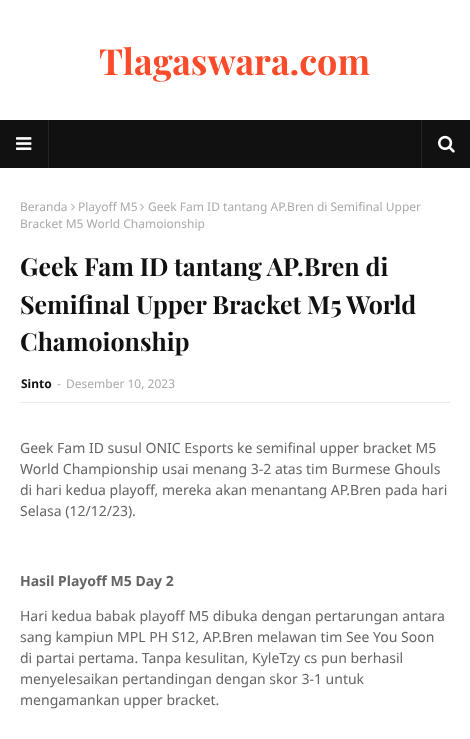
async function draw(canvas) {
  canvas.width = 470;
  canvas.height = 739;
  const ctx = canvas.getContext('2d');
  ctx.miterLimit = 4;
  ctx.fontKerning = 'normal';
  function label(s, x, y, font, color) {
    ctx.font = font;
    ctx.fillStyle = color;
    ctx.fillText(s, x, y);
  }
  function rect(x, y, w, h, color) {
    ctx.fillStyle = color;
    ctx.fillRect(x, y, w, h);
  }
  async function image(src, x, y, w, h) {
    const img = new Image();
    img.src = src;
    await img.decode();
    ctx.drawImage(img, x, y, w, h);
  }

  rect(0, 0, 470, 739, '#fff');
  label('Tlagaswara.com', 99, 75, 'bold 36px Playfair Display', '#fa4c2a');
  rect(0, 120, 470, 48, '#111');
  rect(48, 120, 1, 48, '#242424');
  await image('assets/img1.png', 16, 137, 16, 13);
  rect(421, 120, 1, 48, '#242424');
  await image('assets/img2.png', 438, 135, 17, 18);
  label('Beranda', 20, 211, '12px Noto Sans', '#aaa');
  await image('assets/img3.png', 71, 203, 4, 8);
  label('Playoff M5', 78, 211, '12px Noto Sans', '#aaa');
  await image('assets/img3.png', 140, 203, 4, 8);
  label('Geek Fam ID tantang AP.Bren di Semifinal Upper', 148, 211, '12px Noto Sans', '#aaa');
  label('Bracket M5 World Chamoionship', 20, 228, '12px Noto Sans', '#aaa');
  label('Geek Fam ID tantang AP.Bren di', 20, 276, 'bold 25px Playfair Display', '#111');
  label('Semifinal Upper Bracket M5 World', 20, 314, 'bold 25px Playfair Display', '#111');
  label('Chamoionship', 20, 351, 'bold 25px Playfair Display', '#111');
  rect(20, 402, 430, 1, '#eaeaea');
  label('Sinto', 21, 388, 'bold 12px Noto Sans', '#111');
  label('-', 57, 388, '12px Noto Sans', '#aaa');
  label('Desember 10, 2023', 66, 388, '12px Noto Sans', '#aaa');
  label('Geek Fam ID susul ONIC Esports ke semifinal upper bracket M5', 20, 453, '14px Noto Sans', '#656565');
  label('World Championship usai menang 3-2 atas tim Burmese Ghouls', 20, 474, '14px Noto Sans', '#656565');
  label('di hari kedua playoff, mereka akan menantang AP.Bren pada hari', 20, 495, '14px Noto Sans', '#656565');
  label('Selasa (12/12/23).', 20, 516, '14px Noto Sans', '#656565');
  label('Hasil Playoff M5 Day 2', 20, 586, 'bold 14px Noto Sans', '#656565');
  label('Hari kedua babak playoff M5 dibuka dengan pertarungan antara', 20, 621, '14px Noto Sans', '#656565');
  label('sang kampiun MPL PH S12, AP.Bren melawan tim See You Soon', 20, 642, '14px Noto Sans', '#656565');
  label('di partai pertama. Tanpa kesulitan, KyleTzy cs pun berhasil', 20, 663, '14px Noto Sans', '#656565');
  label('menyelesaikan pertandingan dengan skor 3-1 untuk', 20, 684, '14px Noto Sans', '#656565');
  label('mengamankan upper bracket.', 20, 705, '14px Noto Sans', '#656565');
}

draw(document.querySelector('canvas'));
